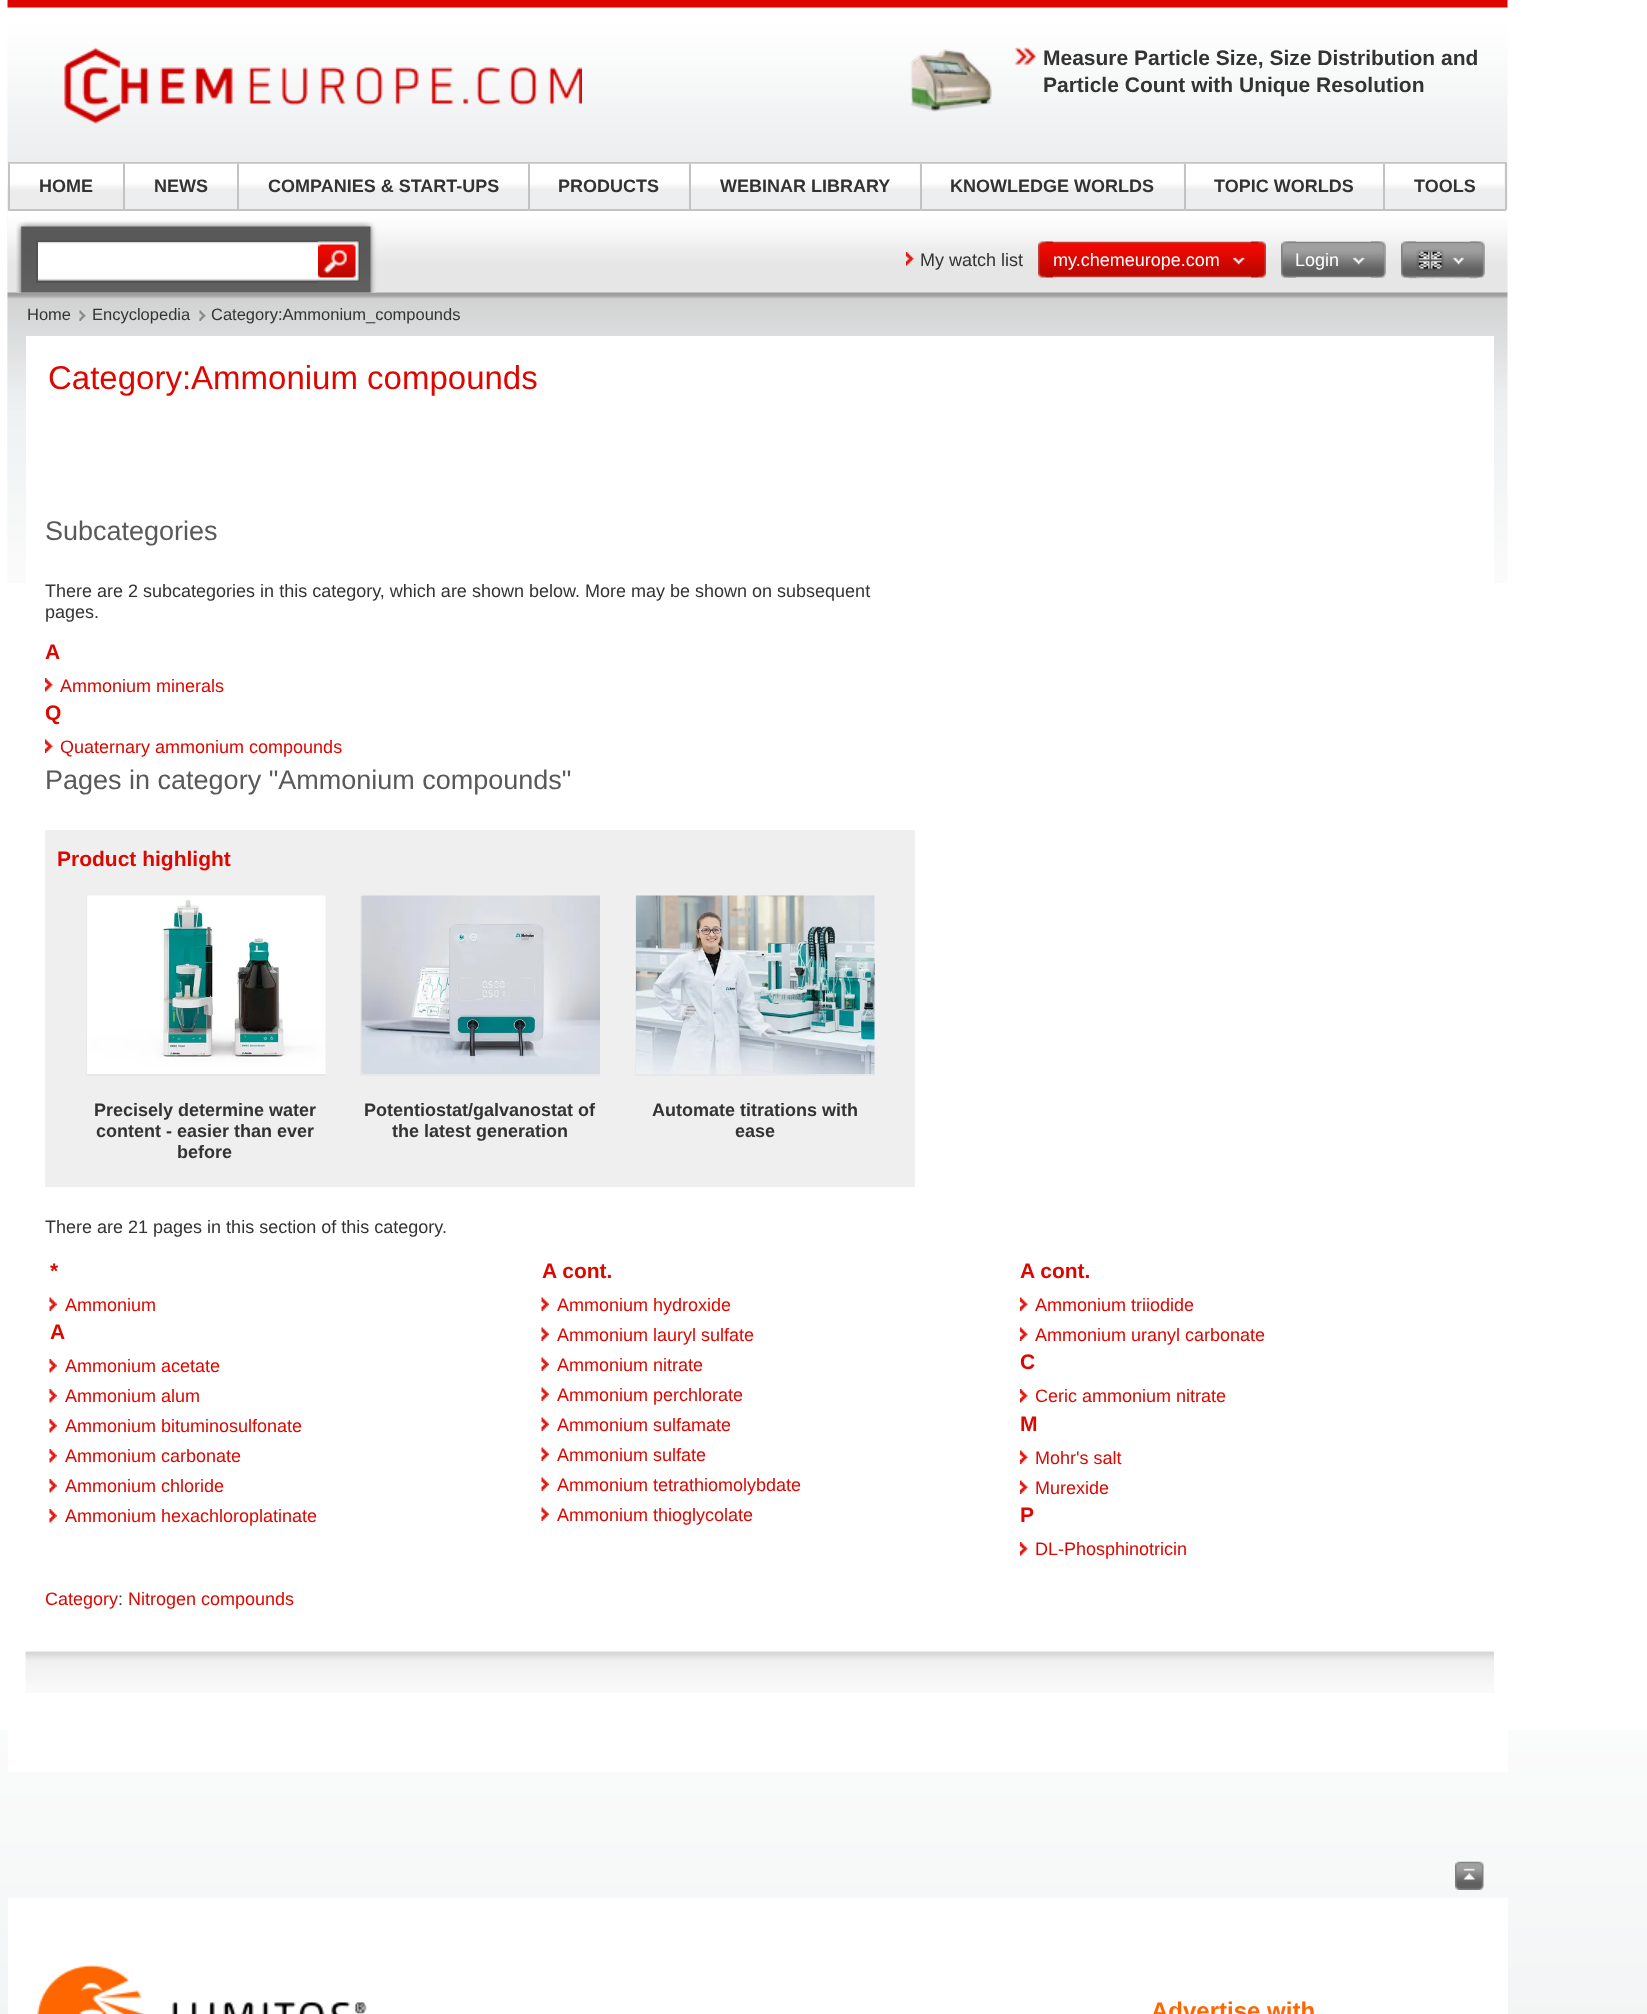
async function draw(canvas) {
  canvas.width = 1647;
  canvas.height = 2014;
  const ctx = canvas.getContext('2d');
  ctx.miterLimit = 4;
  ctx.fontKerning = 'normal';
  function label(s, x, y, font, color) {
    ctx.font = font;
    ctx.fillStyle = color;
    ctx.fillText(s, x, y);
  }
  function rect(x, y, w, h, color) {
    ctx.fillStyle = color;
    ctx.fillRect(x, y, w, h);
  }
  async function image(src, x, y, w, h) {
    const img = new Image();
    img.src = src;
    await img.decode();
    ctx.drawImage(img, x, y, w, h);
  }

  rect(0, 0, 1647, 2014, '#fff');
  await image('assets/img1.png', 0, 1730, 1647, 284);
  await image('assets/img2.png', 7, 0, 1501, 539);
  await image('assets/img3.png', 64, 47, 518, 77);
  await image('assets/img4.png', 910, 49, 82, 63);
  await image('assets/img5.png', 1015, 47, 22, 19);
  label('Measure Particle Size, Size Distribution and', 1043, 65, 'bold 21px Liberation Sans', '#333');
  label('Particle Count with Unique Resolution', 1043, 92, 'bold 21px Liberation Sans', '#333');
  rect(8, 162, 1498, 2, '#c3c3c3');
  rect(1505, 162, 2, 48, '#c3c3c3');
  rect(8, 210, 1500, 1562, '#fff');
  rect(8, 209, 1498, 2, '#c3c3c3');
  await image('assets/img6.png', 7, 163, 116, 45);
  rect(8, 164, 2, 45, '#c3c3c3');
  label('HOME', 39, 192, 'bold 18px Liberation Sans', '#333');
  await image('assets/img7.png', 123, 163, 114, 26);
  rect(123, 164, 2, 45, '#c3c3c3');
  label('NEWS', 154, 192, 'bold 18px Liberation Sans', '#333');
  await image('assets/img8.png', 237, 163, 291, 26);
  rect(237, 164, 2, 45, '#c3c3c3');
  label('COMPANIES & START-UPS', 268, 192, 'bold 18px Liberation Sans', '#333');
  await image('assets/img9.png', 528, 163, 161, 26);
  rect(528, 164, 2, 45, '#c3c3c3');
  label('PRODUCTS', 558, 192, 'bold 18px Liberation Sans', '#333');
  await image('assets/img10.png', 688, 163, 232, 26);
  rect(689, 164, 2, 45, '#c3c3c3');
  label('WEBINAR LIBRARY', 720, 192, 'bold 18px Liberation Sans', '#333');
  await image('assets/img11.png', 919, 163, 265, 26);
  rect(920, 164, 2, 45, '#c3c3c3');
  label('KNOWLEDGE WORLDS', 950, 192, 'bold 18px Liberation Sans', '#333');
  await image('assets/img12.png', 1183, 163, 200, 26);
  rect(1184, 164, 2, 45, '#c3c3c3');
  label('TOPIC WORLDS', 1214, 192, 'bold 18px Liberation Sans', '#333');
  await image('assets/img13.png', 1383, 163, 122, 26);
  rect(1383, 164, 2, 45, '#c3c3c3');
  label('TOOLS', 1414, 192, 'bold 18px Liberation Sans', '#333');
  await image('assets/img14.png', 7, 212, 1501, 371);
  await image('assets/img15.png', 16, 221, 361, 72);
  await image('assets/img16.png', 38, 242, 280, 39);
  rect(36, 240, 282, 2, '#535252');
  rect(36, 281, 282, 2, '#535252');
  rect(36, 240, 2, 42, '#535252');
  await image('assets/img17.png', 318, 240, 42, 42);
  await image('assets/img18.png', 906, 252, 8, 14);
  label('My watch list', 920, 266, '18px Liberation Sans', '#333');
  await image('assets/img19.png', 1038, 241, 15, 37);
  await image('assets/img20.png', 1251, 241, 15, 37);
  await image('assets/img21.png', 1045, 241, 214, 37);
  label('my.chemeurope.com', 1053, 266, '18px Liberation Sans', '#fff');
  await image('assets/img22.png', 1232, 257, 13, 8);
  await image('assets/img23.png', 1281, 241, 15, 37);
  await image('assets/img24.png', 1371, 241, 15, 37);
  await image('assets/img25.png', 1288, 241, 91, 37);
  label('Login', 1295, 266, '18px Liberation Sans', '#fff');
  await image('assets/img26.png', 1352, 257, 13, 8);
  await image('assets/img27.png', 1401, 241, 15, 37);
  await image('assets/img28.png', 1470, 241, 15, 37);
  await image('assets/img29.png', 1408, 241, 70, 38);
  await image('assets/img30.png', 1416, 249, 28, 22);
  await image('assets/img31.png', 1453, 257, 11, 8);
  label('Home', 27, 320, '16.5px Liberation Sans', '#333');
  await image('assets/img32.png', 79, 310, 7, 11);
  label('Encyclopedia', 92, 320, '16.5px Liberation Sans', '#333');
  await image('assets/img32.png', 199, 310, 7, 11);
  label('Category:Ammonium_compounds', 211, 320, '16.5px Liberation Sans', '#333');
  rect(26, 336, 1468, 247, '#fff');
  label('Category:Ammonium compounds', 48, 389, '33px Liberation Sans', '#dd0700');
  label('Subcategories', 45, 540, '27px Liberation Sans', '#595959');
  label('There are 2 subcategories in this category, which are shown below. More may be shown on subsequent', 45, 597, '18px Liberation Sans', '#333');
  label('pages.', 45, 618, '18px Liberation Sans', '#333');
  label('A', 45, 659, 'bold 21px Liberation Sans', '#dd0700');
  await image('assets/img33.png', 45, 678, 8, 14);
  label('Ammonium minerals', 60, 692, '18px Liberation Sans', '#dd0700');
  label('Q', 45, 720, 'bold 21px Liberation Sans', '#dd0700');
  await image('assets/img34.png', 45, 739, 8, 14);
  label('Quaternary ammonium compounds', 60, 753, '18px Liberation Sans', '#dd0700');
  label('Pages in category "Ammonium compounds"', 45, 789, '27px Liberation Sans', '#595959');
  rect(45, 830, 870, 357, '#efefef');
  label('Product highlight', 57, 866, 'bold 21px Liberation Sans', '#dd0700');
  ctx.save();
  ctx.beginPath();
  ctx.rect(86, 896, 240, 180);
  ctx.clip();
  ctx.strokeStyle = '#e8e8e8';
  ctx.lineWidth = 2;
  ctx.strokeRect(87, 894, 280, 181);
  ctx.restore();
  await image('assets/img35.png', 87, 895, 239, 179);
  label('Precisely determine water', 94, 1116, 'bold 18px Liberation Sans', '#333');
  label('content - easier than ever', 96, 1137, 'bold 18px Liberation Sans', '#333');
  label('before', 177, 1158, 'bold 18px Liberation Sans', '#333');
  ctx.save();
  ctx.beginPath();
  ctx.rect(360, 896, 240, 180);
  ctx.clip();
  ctx.strokeStyle = '#e8e8e8';
  ctx.lineWidth = 2;
  ctx.strokeRect(361, 894, 271, 181);
  ctx.restore();
  await image('assets/img36.png', 361, 895, 239, 179);
  label('Potentiostat/galvanostat of', 364, 1116, 'bold 18px Liberation Sans', '#333');
  label('the latest generation', 392, 1137, 'bold 18px Liberation Sans', '#333');
  ctx.save();
  ctx.beginPath();
  ctx.rect(635, 896, 240, 180);
  ctx.clip();
  ctx.strokeStyle = '#e8e8e8';
  ctx.lineWidth = 2;
  ctx.strokeRect(636, 894, 271, 181);
  ctx.restore();
  await image('assets/img37.png', 636, 895, 239, 179);
  label('Automate titrations with', 652, 1116, 'bold 18px Liberation Sans', '#333');
  label('ease', 735, 1137, 'bold 18px Liberation Sans', '#333');
  label('There are 21 pages in this section of this category.', 45, 1233, '18px Liberation Sans', '#333');
  label('*', 50, 1278, 'bold 21px Liberation Sans', '#dd0700');
  await image('assets/img38.png', 49, 1297, 8, 14);
  label('Ammonium', 65, 1311, '18px Liberation Sans', '#dd0700');
  label('A', 50, 1339, 'bold 21px Liberation Sans', '#dd0700');
  await image('assets/img39.png', 49, 1359, 8, 14);
  label('Ammonium acetate', 65, 1372, '18px Liberation Sans', '#dd0700');
  await image('assets/img39.png', 49, 1389, 8, 14);
  label('Ammonium alum', 65, 1402, '18px Liberation Sans', '#dd0700');
  await image('assets/img39.png', 49, 1419, 8, 14);
  label('Ammonium bituminosulfonate', 65, 1432, '18px Liberation Sans', '#dd0700');
  await image('assets/img39.png', 49, 1449, 8, 14);
  label('Ammonium carbonate', 65, 1462, '18px Liberation Sans', '#dd0700');
  await image('assets/img39.png', 49, 1479, 8, 14);
  label('Ammonium chloride', 65, 1492, '18px Liberation Sans', '#dd0700');
  await image('assets/img39.png', 49, 1509, 8, 14);
  label('Ammonium hexachloroplatinate', 65, 1522, '18px Liberation Sans', '#dd0700');
  label('A cont.', 542, 1278, 'bold 21px Liberation Sans', '#dd0700');
  await image('assets/img40.png', 541, 1297, 8, 14);
  label('Ammonium hydroxide', 557, 1311, '18px Liberation Sans', '#dd0700');
  await image('assets/img40.png', 541, 1327, 8, 14);
  label('Ammonium lauryl sulfate', 557, 1341, '18px Liberation Sans', '#dd0700');
  await image('assets/img40.png', 541, 1357, 8, 14);
  label('Ammonium nitrate', 557, 1371, '18px Liberation Sans', '#dd0700');
  await image('assets/img40.png', 541, 1387, 8, 14);
  label('Ammonium perchlorate', 557, 1401, '18px Liberation Sans', '#dd0700');
  await image('assets/img40.png', 541, 1417, 8, 14);
  label('Ammonium sulfamate', 557, 1431, '18px Liberation Sans', '#dd0700');
  await image('assets/img40.png', 541, 1447, 8, 14);
  label('Ammonium sulfate', 557, 1461, '18px Liberation Sans', '#dd0700');
  await image('assets/img40.png', 541, 1477, 8, 14);
  label('Ammonium tetrathiomolybdate', 557, 1491, '18px Liberation Sans', '#dd0700');
  await image('assets/img40.png', 541, 1507, 8, 14);
  label('Ammonium thioglycolate', 557, 1521, '18px Liberation Sans', '#dd0700');
  label('A cont.', 1020, 1278, 'bold 21px Liberation Sans', '#dd0700');
  await image('assets/img41.png', 1020, 1297, 8, 14);
  label('Ammonium triiodide', 1035, 1311, '18px Liberation Sans', '#dd0700');
  await image('assets/img41.png', 1020, 1327, 8, 14);
  label('Ammonium uranyl carbonate', 1035, 1341, '18px Liberation Sans', '#dd0700');
  label('C', 1020, 1369, 'bold 21px Liberation Sans', '#dd0700');
  await image('assets/img42.png', 1020, 1389, 8, 14);
  label('Ceric ammonium nitrate', 1035, 1402, '18px Liberation Sans', '#dd0700');
  label('M', 1020, 1431, 'bold 21px Liberation Sans', '#dd0700');
  await image('assets/img41.png', 1020, 1450, 8, 14);
  label('Mohr\'s salt', 1035, 1464, '18px Liberation Sans', '#dd0700');
  await image('assets/img41.png', 1020, 1480, 8, 14);
  label('Murexide', 1035, 1494, '18px Liberation Sans', '#dd0700');
  label('P', 1020, 1522, 'bold 21px Liberation Sans', '#dd0700');
  await image('assets/img42.png', 1020, 1542, 8, 14);
  label('DL-Phosphinotricin', 1035, 1555, '18px Liberation Sans', '#dd0700');
  label('Category', 45, 1605, '18px Liberation Sans', '#dd0700');
  label(':', 118, 1605, '18px Liberation Sans', '#333');
  label('Nitrogen compounds', 128, 1605, '18px Liberation Sans', '#dd0700');
  await image('assets/img43.png', 25, 1651, 1469, 42);
  await image('assets/img44.png', 1455, 1861, 29, 29);
  rect(8, 1898, 1500, 116, '#fff');
  await image('assets/img45.png', 37, 1964, 330, 50);
  label('Advertise with', 1151, 2019, 'bold 24px Liberation Sans', '#f60');
}

draw(document.querySelector('canvas'));
